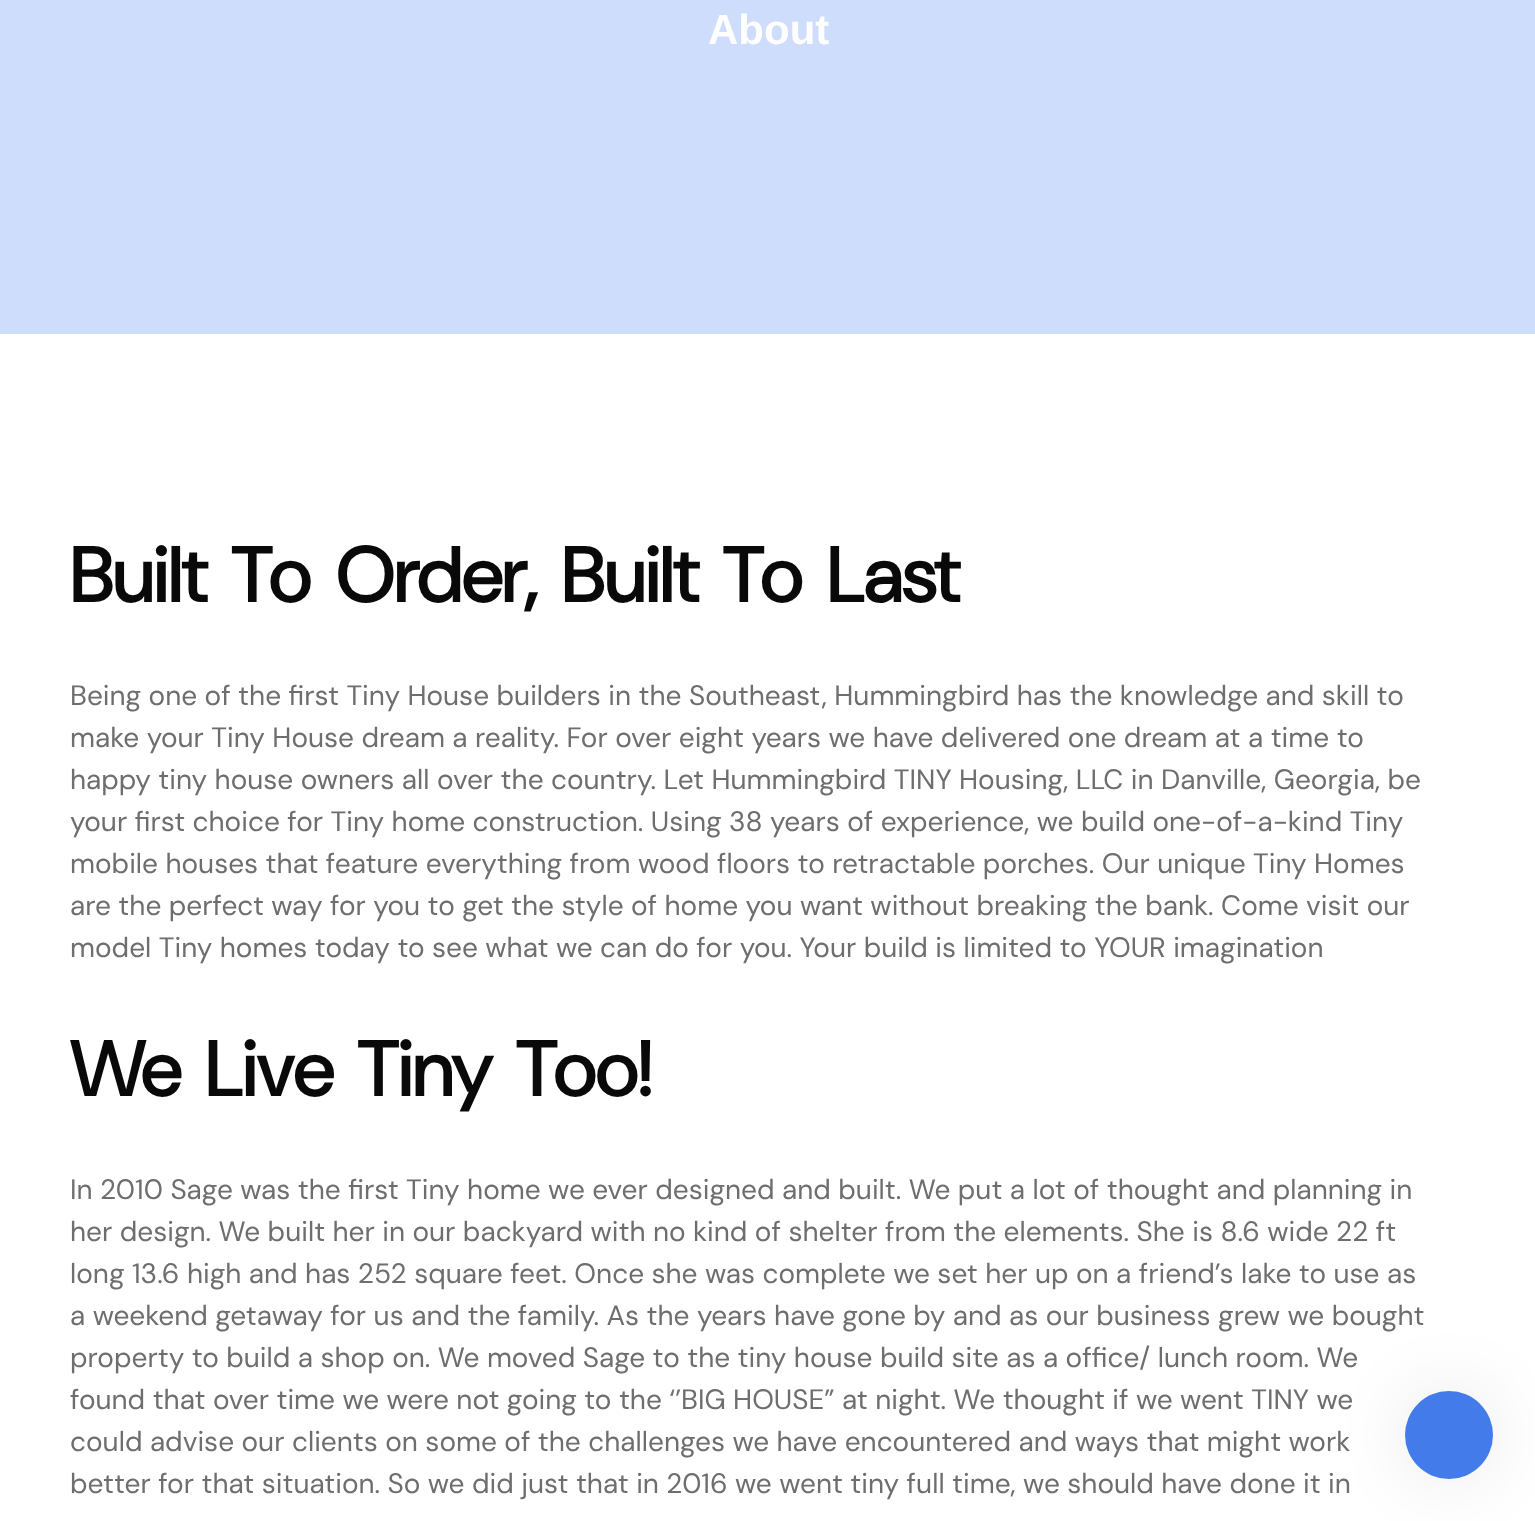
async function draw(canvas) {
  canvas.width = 1535;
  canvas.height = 1521;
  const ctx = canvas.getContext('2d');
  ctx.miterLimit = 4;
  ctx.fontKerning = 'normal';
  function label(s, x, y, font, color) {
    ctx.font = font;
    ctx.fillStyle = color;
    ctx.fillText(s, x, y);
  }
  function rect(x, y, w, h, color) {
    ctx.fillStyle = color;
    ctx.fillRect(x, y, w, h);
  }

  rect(0, 0, 1535, 1521, '#fff');
  rect(0, 0, 1535, 334, '#cdddfb');
  label('About', 708, 44, 'bold 42px Liberation Sans', '#fefefe');
  ctx.wordSpacing = '9.5px';
  label('Built To Order, Built To Last', 70, 602, 'bold 77px DM Sans', '#0a0909');
  ctx.wordSpacing = '0px';
  label('Being one of the first Tiny House builders in the Southeast, Hummingbird has the knowledge and skill to', 70, 705, '28px DM Sans', '#6f6d6d');
  label('make your Tiny House dream a reality. For over eight years we have delivered one dream at a time to', 70, 747, '28px DM Sans', '#6f6d6d');
  label('happy tiny house owners all over the country. Let Hummingbird TINY Housing, LLC in Danville, Georgia, be', 70, 789, '28px DM Sans', '#6f6d6d');
  label('your first choice for Tiny home construction. Using 38 years of experience, we build one-of-a-kind Tiny', 70, 831, '28px DM Sans', '#6f6d6d');
  label('mobile houses that feature everything from wood floors to retractable porches. Our unique Tiny Homes', 70, 873, '28px DM Sans', '#6f6d6d');
  label('are the perfect way for you to get the style of home you want without breaking the bank. Come visit our', 70, 915, '28px DM Sans', '#6f6d6d');
  label('model Tiny homes today to see what we can do for you. Your build is limited to YOUR imagination', 70, 957, '28px DM Sans', '#6f6d6d');
  ctx.wordSpacing = '9px';
  label('We Live Tiny Too!', 70, 1096, 'bold 77px DM Sans', '#0a0909');
  ctx.wordSpacing = '0px';
  label('In 2010 Sage was the first Tiny home we ever designed and built. We put a lot of thought and planning in', 70, 1199, '28px DM Sans', '#6f6d6d');
  label('her design. We built her in our backyard with no kind of shelter from the elements. She is 8.6 wide 22 ft', 70, 1241, '28px DM Sans', '#6f6d6d');
  label('long 13.6 high and has 252 square feet. Once she was complete we set her up on a friend’s lake to use as', 70, 1283, '28px DM Sans', '#6f6d6d');
  label('a weekend getaway for us and the family. As the years have gone by and as our business grew we bought', 70, 1325, '28px DM Sans', '#6f6d6d');
  label('property to build a shop on. We moved Sage to the tiny house build site as a office/ lunch room. We', 70, 1367, '28px DM Sans', '#6f6d6d');
  label('found that over time we were not going to the ‘’BIG HOUSE” at night. We thought if we went TINY we', 70, 1409, '28px DM Sans', '#6f6d6d');
  label('could advise our clients on some of the challenges we have encountered and ways that might work', 70, 1451, '28px DM Sans', '#6f6d6d');
  label('better for that situation. So we did just that in 2016 we went tiny full time, we should have done it in', 70, 1493, '28px DM Sans', '#6f6d6d');
  ctx.fillStyle = '#00000017';
  ctx.filter = 'blur(35px)';
  ctx.beginPath();
  ctx.roundRect(1405, 1391, 88, 88, 44);
  ctx.fill();
  ctx.filter = 'none';
  ctx.fillStyle = '#447beb';
  ctx.beginPath();
  ctx.arc(1449, 1435, 44, 0, 2 * Math.PI);
  ctx.fill();
}

draw(document.querySelector('canvas'));
